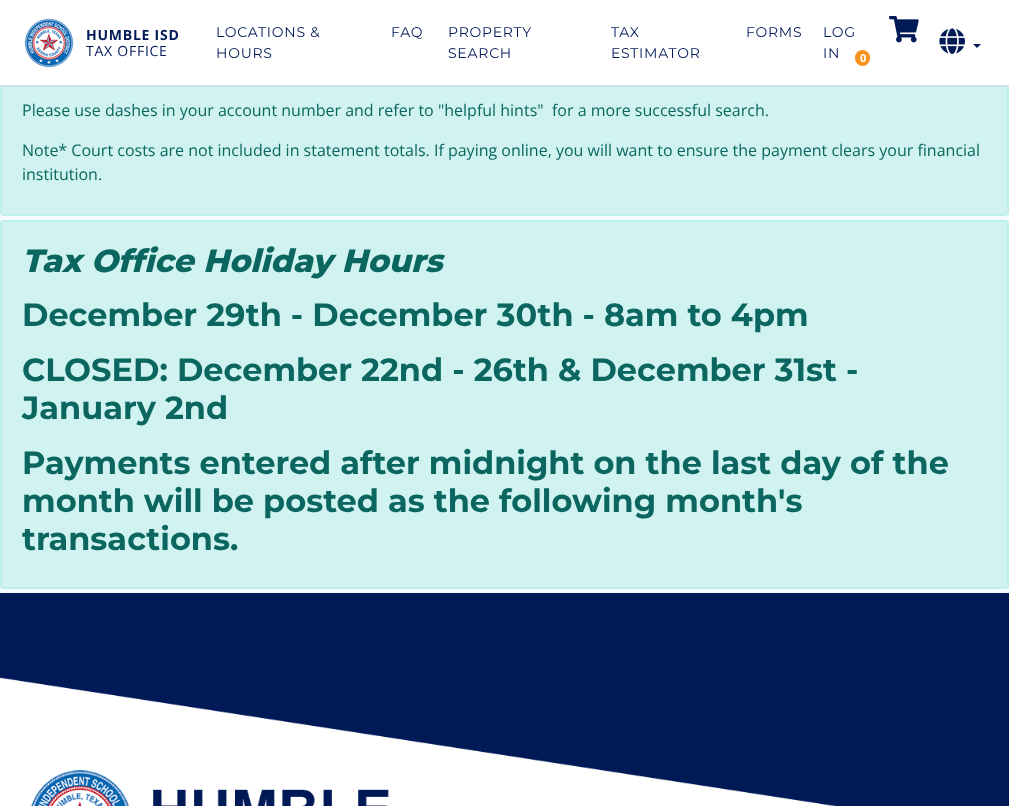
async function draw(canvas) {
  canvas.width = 1009;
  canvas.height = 806;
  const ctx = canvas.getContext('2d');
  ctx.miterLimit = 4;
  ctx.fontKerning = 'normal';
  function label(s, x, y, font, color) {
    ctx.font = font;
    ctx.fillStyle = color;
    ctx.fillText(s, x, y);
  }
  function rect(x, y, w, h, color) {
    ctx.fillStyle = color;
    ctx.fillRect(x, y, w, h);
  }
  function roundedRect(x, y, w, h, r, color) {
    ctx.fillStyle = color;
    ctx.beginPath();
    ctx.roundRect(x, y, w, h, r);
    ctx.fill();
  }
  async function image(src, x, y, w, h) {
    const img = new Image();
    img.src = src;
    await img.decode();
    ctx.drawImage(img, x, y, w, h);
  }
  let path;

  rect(0, 0, 1009, 806, '#f5fafe');
  ctx.fillStyle = '#d0f3f1';
  ctx.beginPath();
  ctx.roundRect(1, 85, 1007, 130, 3);
  ctx.fill();
  ctx.strokeStyle = '#bdefeb';
  ctx.lineWidth = 2;
  ctx.stroke();
  rect(0, 0, 1009, 85, '#fff');
  rect(0, 85, 1009, 2, '#cde0f1');
  await image('assets/img1.png', 24, 18, 50, 50);
  ctx.letterSpacing = '0.75px';
  label('HUMBLE ISD', 86, 40, 'bold 14px Open Sans', '#001957');
  label('TAX OFFICE', 86, 56, '14px Open Sans', '#001957');
  label('LOCATIONS &', 216, 37, '14px Montserrat', '#001957');
  label('HOURS', 216, 58, '14px Montserrat', '#001957');
  label('FAQ', 391, 37, '14px Montserrat', '#001957');
  label('PROPERTY', 448, 37, '14px Montserrat', '#001957');
  label('SEARCH', 448, 58, '14px Montserrat', '#001957');
  label('TAX', 611, 37, '14px Montserrat', '#001957');
  label('ESTIMATOR', 611, 58, '14px Montserrat', '#001957');
  label('FORMS', 746, 37, '14px Montserrat', '#001957');
  label('LOG', 823, 37, '14px Montserrat', '#001957');
  label('IN', 823, 58, '14px Montserrat', '#001957');
  await image('assets/img2.png', 939, 28, 26, 26);
  path = new Path2D('M973 44H981L977 48Z');
  ctx.fill(path);
  await image('assets/img3.png', 889, 16, 30, 27);
  roundedRect(855, 50, 15, 16, 7.5, '#f7921d');
  ctx.letterSpacing = '0px';
  label('0', 860, 62, 'bold 11px Open Sans', '#fff');
  label('Please use dashes in your account number and refer to "helpful hints"  for a more successful search.', 22, 116, '16px Open Sans', '#0a665f');
  label('Note* Court costs are not included in statement totals. If paying online, you will want to ensure the payment clears your financial', 22, 156, '16px Open Sans', '#0a665f');
  label('institution.', 22, 180, '16px Open Sans', '#0a665f');
  ctx.fillStyle = '#d0f3f1';
  ctx.beginPath();
  ctx.roundRect(1, 221, 1007, 367, 3);
  ctx.fill();
  ctx.stroke();
  label('Tax Office Holiday Hours', 22, 272, 'italic 800 32px Montserrat', '#0a665f');
  label('December 29th - December 30th - 8am to 4pm', 22, 326, 'bold 32px Montserrat', '#0a665f');
  label('CLOSED: December 22nd - 26th & December 31st -', 22, 381, 'bold 32px Montserrat', '#0a665f');
  label('January 2nd', 22, 419, 'bold 32px Montserrat', '#0a665f');
  label('Payments entered after midnight on the last day of the', 22, 474, 'bold 32px Montserrat', '#0a665f');
  label('month will be posted as the following month\'s', 22, 512, 'bold 32px Montserrat', '#0a665f');
  label('transactions.', 22, 550, 'bold 32px Montserrat', '#0a665f');
  await image('assets/img4.png', 0, 593, 1009, 213);
}

draw(document.querySelector('canvas'));
